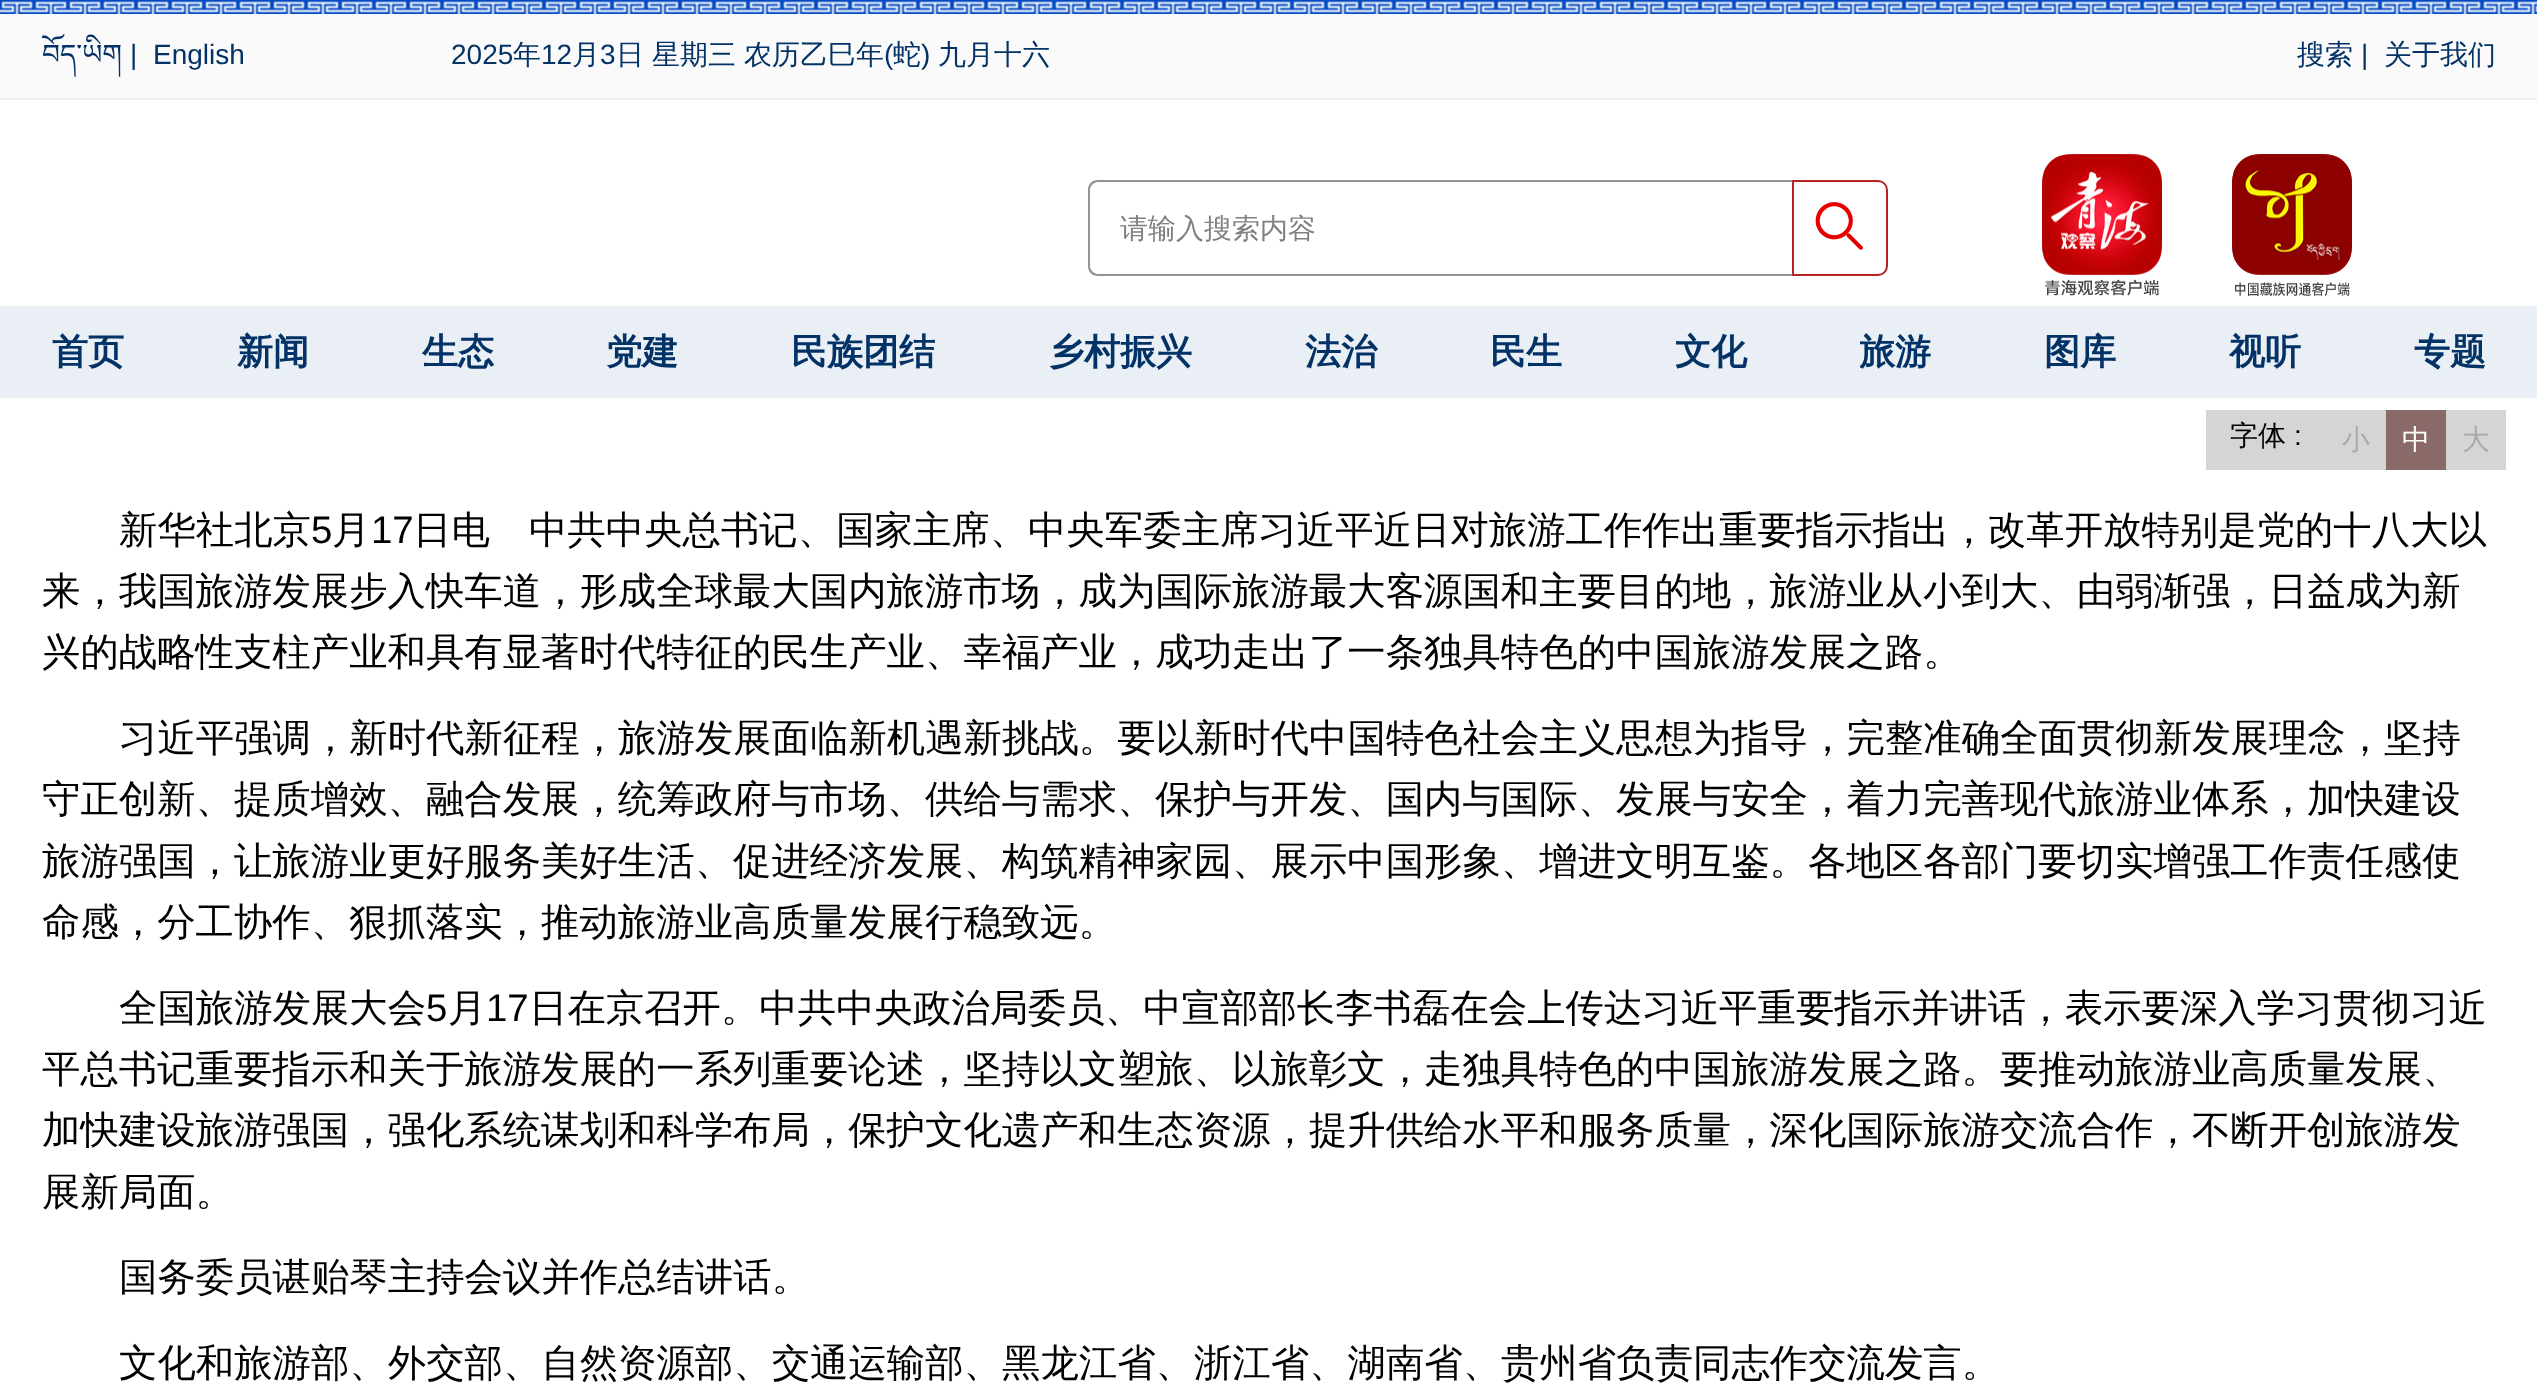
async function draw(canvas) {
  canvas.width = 2537;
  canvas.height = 1385;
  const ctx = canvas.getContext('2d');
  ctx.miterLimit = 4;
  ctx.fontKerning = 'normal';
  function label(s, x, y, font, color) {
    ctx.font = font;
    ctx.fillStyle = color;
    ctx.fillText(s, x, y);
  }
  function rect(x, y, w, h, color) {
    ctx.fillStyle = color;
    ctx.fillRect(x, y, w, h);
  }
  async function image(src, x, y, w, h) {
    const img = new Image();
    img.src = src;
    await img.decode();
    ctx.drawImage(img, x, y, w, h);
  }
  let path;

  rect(0, 0, 2537, 1385, '#fff');
  rect(0, 1, 2537, 97, '#fafafa');
  await image('assets/img1.png', 0, 0, 2537, 14);
  rect(0, 98, 2537, 2, '#eee');
  label('བོད་ཡིག', 42, 64, '28px Noto Serif Tibetan', '#033266');
  label('|', 130, 64, '28px Liberation Sans', '#033266');
  label('English', 153, 64, '28px Liberation Sans', '#033266');
  label('2025', 451, 64, '28px Liberation Sans', '#033266');
  label('年', 513, 64, '500 28px WenQuanYi Zen Hei', '#033266');
  label('12', 541, 64, '28px Liberation Sans', '#033266');
  label('月', 572, 64, '500 28px WenQuanYi Zen Hei', '#033266');
  label('3', 600, 64, '28px Liberation Sans', '#033266');
  label('日', 616, 64, '500 28px WenQuanYi Zen Hei', '#033266');
  label('星期三', 652, 64, '500 28px WenQuanYi Zen Hei', '#033266');
  label('农历乙巳年', 744, 64, '500 28px WenQuanYi Zen Hei', '#033266');
  label('(', 884, 64, '28px Liberation Sans', '#033266');
  label('蛇', 893, 64, '500 28px WenQuanYi Zen Hei', '#033266');
  label(')', 921, 64, '28px Liberation Sans', '#033266');
  label('九月十六', 938, 64, '500 28px WenQuanYi Zen Hei', '#033266');
  label('搜索', 2297, 64, '500 28px WenQuanYi Zen Hei', '#033266');
  label('|', 2361, 64, '28px Liberation Sans', '#033266');
  label('关于我们', 2384, 64, '500 28px WenQuanYi Zen Hei', '#033266');
  ctx.fillStyle = '#939395';
  path = new Path2D('M1098 180H1792V276H1098C1092 276 1088 272 1088 266V190C1088 184 1092 180 1098 180ZM1098 182H1792V274H1098C1094 274 1090 270 1090 266V190C1090 186 1094 182 1098 182Z');
  ctx.fill(path, 'evenodd');
  label('请输入搜索内容', 1120, 238, '500 28px WenQuanYi Zen Hei', '#808080');
  await image('assets/img2.png', 1815, 202, 48, 48);
  ctx.beginPath();
  ctx.roundRect(1793, 181, 94, 94, [0, 9, 9, 0]);
  ctx.strokeStyle = '#b72222';
  ctx.lineWidth = 2;
  ctx.stroke();
  await image('assets/img3.png', 2042, 154, 120, 142);
  await image('assets/img4.png', 2232, 154, 120, 142);
  rect(0, 306, 2537, 92, '#e9eff4');
  label('首页', 52, 364, 'bold 36px WenQuanYi Zen Hei', '#033266');
  label('新闻', 237, 364, 'bold 36px WenQuanYi Zen Hei', '#033266');
  label('生态', 422, 364, 'bold 36px WenQuanYi Zen Hei', '#033266');
  label('党建', 606, 364, 'bold 36px WenQuanYi Zen Hei', '#033266');
  label('民族团结', 791, 364, 'bold 36px WenQuanYi Zen Hei', '#033266');
  label('乡村振兴', 1048, 364, 'bold 36px WenQuanYi Zen Hei', '#033266');
  label('法治', 1305, 364, 'bold 36px WenQuanYi Zen Hei', '#033266');
  label('民生', 1490, 364, 'bold 36px WenQuanYi Zen Hei', '#033266');
  label('文化', 1675, 364, 'bold 36px WenQuanYi Zen Hei', '#033266');
  ctx.save();
  ctx.beginPath();
  ctx.rect(1860, 306, 72, 92);
  ctx.clip();
  label('旅游', 1859, 364, 'bold 36px WenQuanYi Zen Hei', '#033266');
  ctx.restore();
  label('图库', 2044, 364, 'bold 36px WenQuanYi Zen Hei', '#033266');
  label('视听', 2229, 364, 'bold 36px WenQuanYi Zen Hei', '#033266');
  label('专题', 2414, 364, 'bold 36px WenQuanYi Zen Hei', '#033266');
  rect(2206, 410, 300, 60, '#d6d5d5');
  label('字体', 2230, 445, '500 28px WenQuanYi Zen Hei', '#000');
  label(':', 2294, 445, '28px Liberation Sans', '#000');
  label('小', 2342, 449, '500 28px WenQuanYi Zen Hei', '#aaa');
  rect(2386, 410, 60, 60, '#8a6969');
  label('中', 2402, 449, '500 28px WenQuanYi Zen Hei', '#fff');
  label('大', 2462, 449, '500 28px WenQuanYi Zen Hei', '#aaa');
  label('新华社北京', 119, 543, '500 38.4px WenQuanYi Zen Hei', '#000');
  label('5', 311, 543, '38.4px Liberation Sans', '#000');
  label('月', 332, 543, '500 38.4px WenQuanYi Zen Hei', '#000');
  label('17', 371, 543, '38.4px Liberation Sans', '#000');
  label('日电', 413, 543, '500 38.4px WenQuanYi Zen Hei', '#000');
  label('中共中央总书记、国家主席、中央军委主席习近平近日对旅游工作作出重要指示指出，改革开放特别是党的十八大以', 529, 543, '500 38.4px WenQuanYi Zen Hei', '#000');
  label('来，我国旅游发展步入快车道，形成全球最大国内旅游市场，成为国际旅游最大客源国和主要目的地，旅游业从小到大、由弱渐强，日益成为新', 42, 604, '500 38.4px WenQuanYi Zen Hei', '#000');
  label('兴的战略性支柱产业和具有显著时代特征的民生产业、幸福产业，成功走出了一条独具特色的中国旅游发展之路。', 42, 665, '500 38.4px WenQuanYi Zen Hei', '#000');
  label('习近平强调，新时代新征程，旅游发展面临新机遇新挑战。要以新时代中国特色社会主义思想为指导，完整准确全面贯彻新发展理念，坚持', 119, 751, '500 38.4px WenQuanYi Zen Hei', '#000');
  label('守正创新、提质增效、融合发展，统筹政府与市场、供给与需求、保护与开发、国内与国际、发展与安全，着力完善现代旅游业体系，加快建设', 42, 812, '500 38.4px WenQuanYi Zen Hei', '#000');
  label('旅游强国，让旅游业更好服务美好生活、促进经济发展、构筑精神家园、展示中国形象、增进文明互鉴。各地区各部门要切实增强工作责任感使', 42, 874, '500 38.4px WenQuanYi Zen Hei', '#000');
  label('命感，分工协作、狠抓落实，推动旅游业高质量发展行稳致远。', 42, 935, '500 38.4px WenQuanYi Zen Hei', '#000');
  label('全国旅游发展大会', 119, 1021, '500 38.4px WenQuanYi Zen Hei', '#000');
  label('5', 426, 1021, '38.4px Liberation Sans', '#000');
  label('月', 448, 1021, '500 38.4px WenQuanYi Zen Hei', '#000');
  label('17', 486, 1021, '38.4px Liberation Sans', '#000');
  label('日在京召开。中共中央政治局委员、中宣部部长李书磊在会上传达习近平重要指示并讲话，表示要深入学习贯彻习近', 529, 1021, '500 38.4px WenQuanYi Zen Hei', '#000');
  label('平总书记重要指示和关于旅游发展的一系列重要论述，坚持以文塑旅、以旅彰文，走独具特色的中国旅游发展之路。要推动旅游业高质量发展、', 42, 1082, '500 38.4px WenQuanYi Zen Hei', '#000');
  label('加快建设旅游强国，强化系统谋划和科学布局，保护文化遗产和生态资源，提升供给水平和服务质量，深化国际旅游交流合作，不断开创旅游发', 42, 1143, '500 38.4px WenQuanYi Zen Hei', '#000');
  label('展新局面。', 42, 1205, '500 38.4px WenQuanYi Zen Hei', '#000');
  label('国务委员谌贻琴主持会议并作总结讲话。', 119, 1290, '500 38.4px WenQuanYi Zen Hei', '#000');
  label('文化和旅游部、外交部、自然资源部、交通运输部、黑龙江省、浙江省、湖南省、贵州省负责同志作交流发言。', 119, 1376, '500 38.4px WenQuanYi Zen Hei', '#000');
}

draw(document.querySelector('canvas'));
